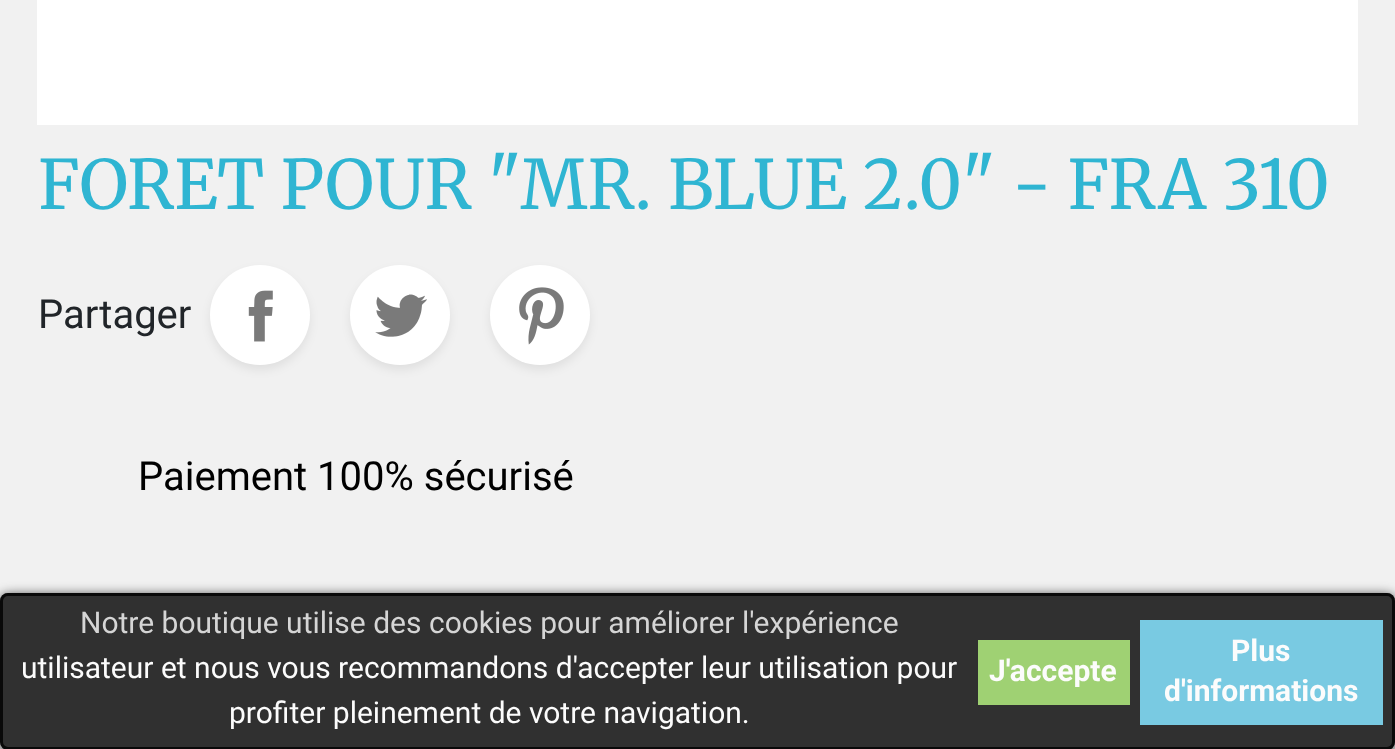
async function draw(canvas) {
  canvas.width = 1395;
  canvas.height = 749;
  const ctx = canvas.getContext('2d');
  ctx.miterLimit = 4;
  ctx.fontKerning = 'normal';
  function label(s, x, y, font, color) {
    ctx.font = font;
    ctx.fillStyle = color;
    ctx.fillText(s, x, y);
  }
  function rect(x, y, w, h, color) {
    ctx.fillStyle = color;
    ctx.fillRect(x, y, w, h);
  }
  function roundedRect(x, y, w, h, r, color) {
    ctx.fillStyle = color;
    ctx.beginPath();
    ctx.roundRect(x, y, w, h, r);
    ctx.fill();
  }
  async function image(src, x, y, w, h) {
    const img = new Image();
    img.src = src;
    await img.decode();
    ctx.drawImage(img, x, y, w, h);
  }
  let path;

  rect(0, 0, 1395, 749, '#f1f1f1');
  rect(37, 0, 1321, 125, '#fff');
  label('FORET POUR "MR. BLUE 2.0" - FRA 310', 38, 209, '68px Merriweather', '#2fb5d2');
  label('Partager', 38, 328, '40px Roboto', '#212529');
  ctx.fillStyle = '#00000012';
  ctx.filter = 'blur(5px)';
  ctx.beginPath();
  ctx.roundRect(210, 270, 100, 100, 50);
  ctx.fill();
  ctx.filter = 'none';
  ctx.fillStyle = '#fff';
  ctx.beginPath();
  ctx.arc(260, 315, 50, 0, 2 * Math.PI);
  ctx.fill();
  await image('assets/img1.png', 248, 290, 25, 52);
  ctx.fillStyle = '#00000012';
  ctx.filter = 'blur(5px)';
  ctx.beginPath();
  ctx.roundRect(350, 270, 100, 100, 50);
  ctx.fill();
  ctx.filter = 'none';
  ctx.fillStyle = '#fff';
  ctx.beginPath();
  ctx.arc(400, 315, 50, 0, 2 * Math.PI);
  ctx.fill();
  await image('assets/img2.png', 375, 294, 52, 43);
  ctx.fillStyle = '#00000012';
  ctx.filter = 'blur(5px)';
  ctx.beginPath();
  ctx.roundRect(490, 270, 100, 100, 50);
  ctx.fill();
  ctx.filter = 'none';
  ctx.fillStyle = '#fff';
  ctx.beginPath();
  ctx.arc(540, 315, 50, 0, 2 * Math.PI);
  ctx.fill();
  await image('assets/img3.png', 519, 287, 45, 58);
  label('Paiement 100% sécurisé', 138, 490, '40px Roboto', '#000');
  ctx.save();
  path = new Path2D('M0 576H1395V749H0ZM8 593H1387C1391.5 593 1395 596.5 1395 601V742C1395 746.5 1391.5 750 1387 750H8C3.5 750 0 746.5 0 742V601C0 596.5 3.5 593 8 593Z');
  ctx.clip(path, 'evenodd');
  ctx.fillStyle = '#303030';
  ctx.filter = 'blur(6px)';
  ctx.beginPath();
  ctx.roundRect(0, 595, 1395, 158, 8);
  ctx.fill();
  ctx.filter = 'none';
  ctx.restore();
  roundedRect(0, 593, 1395, 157, 8, '#000000cc');
  ctx.beginPath();
  ctx.roundRect(1.5, 594.5, 1392, 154, 6.5);
  ctx.strokeStyle = '#000000cc';
  ctx.lineWidth = 3;
  ctx.stroke();
  label('Notre boutique utilise des cookies pour améliorer l\'expérience', 80, 633, '30px Roboto', '#d5d5d5');
  label('utilisateur et nous vous recommandons d\'accepter leur utilisation pour', 21, 678, '30px Roboto', '#fcfcfc');
  label('profiter pleinement de votre navigation.', 229, 723, '30px Roboto', '#fcfcfc');
  rect(978, 640, 152, 65, '#9fd173');
  label('J\'accepte', 989, 681, 'bold 30px Roboto', '#fcfcfc');
  rect(1140, 620, 243, 105, '#79cae2');
  label('Plus', 1231, 661, 'bold 30px Roboto', '#fcfcfc');
  label('d\'informations', 1164, 701, 'bold 30px Roboto', '#fcfcfc');
}

draw(document.querySelector('canvas'));
